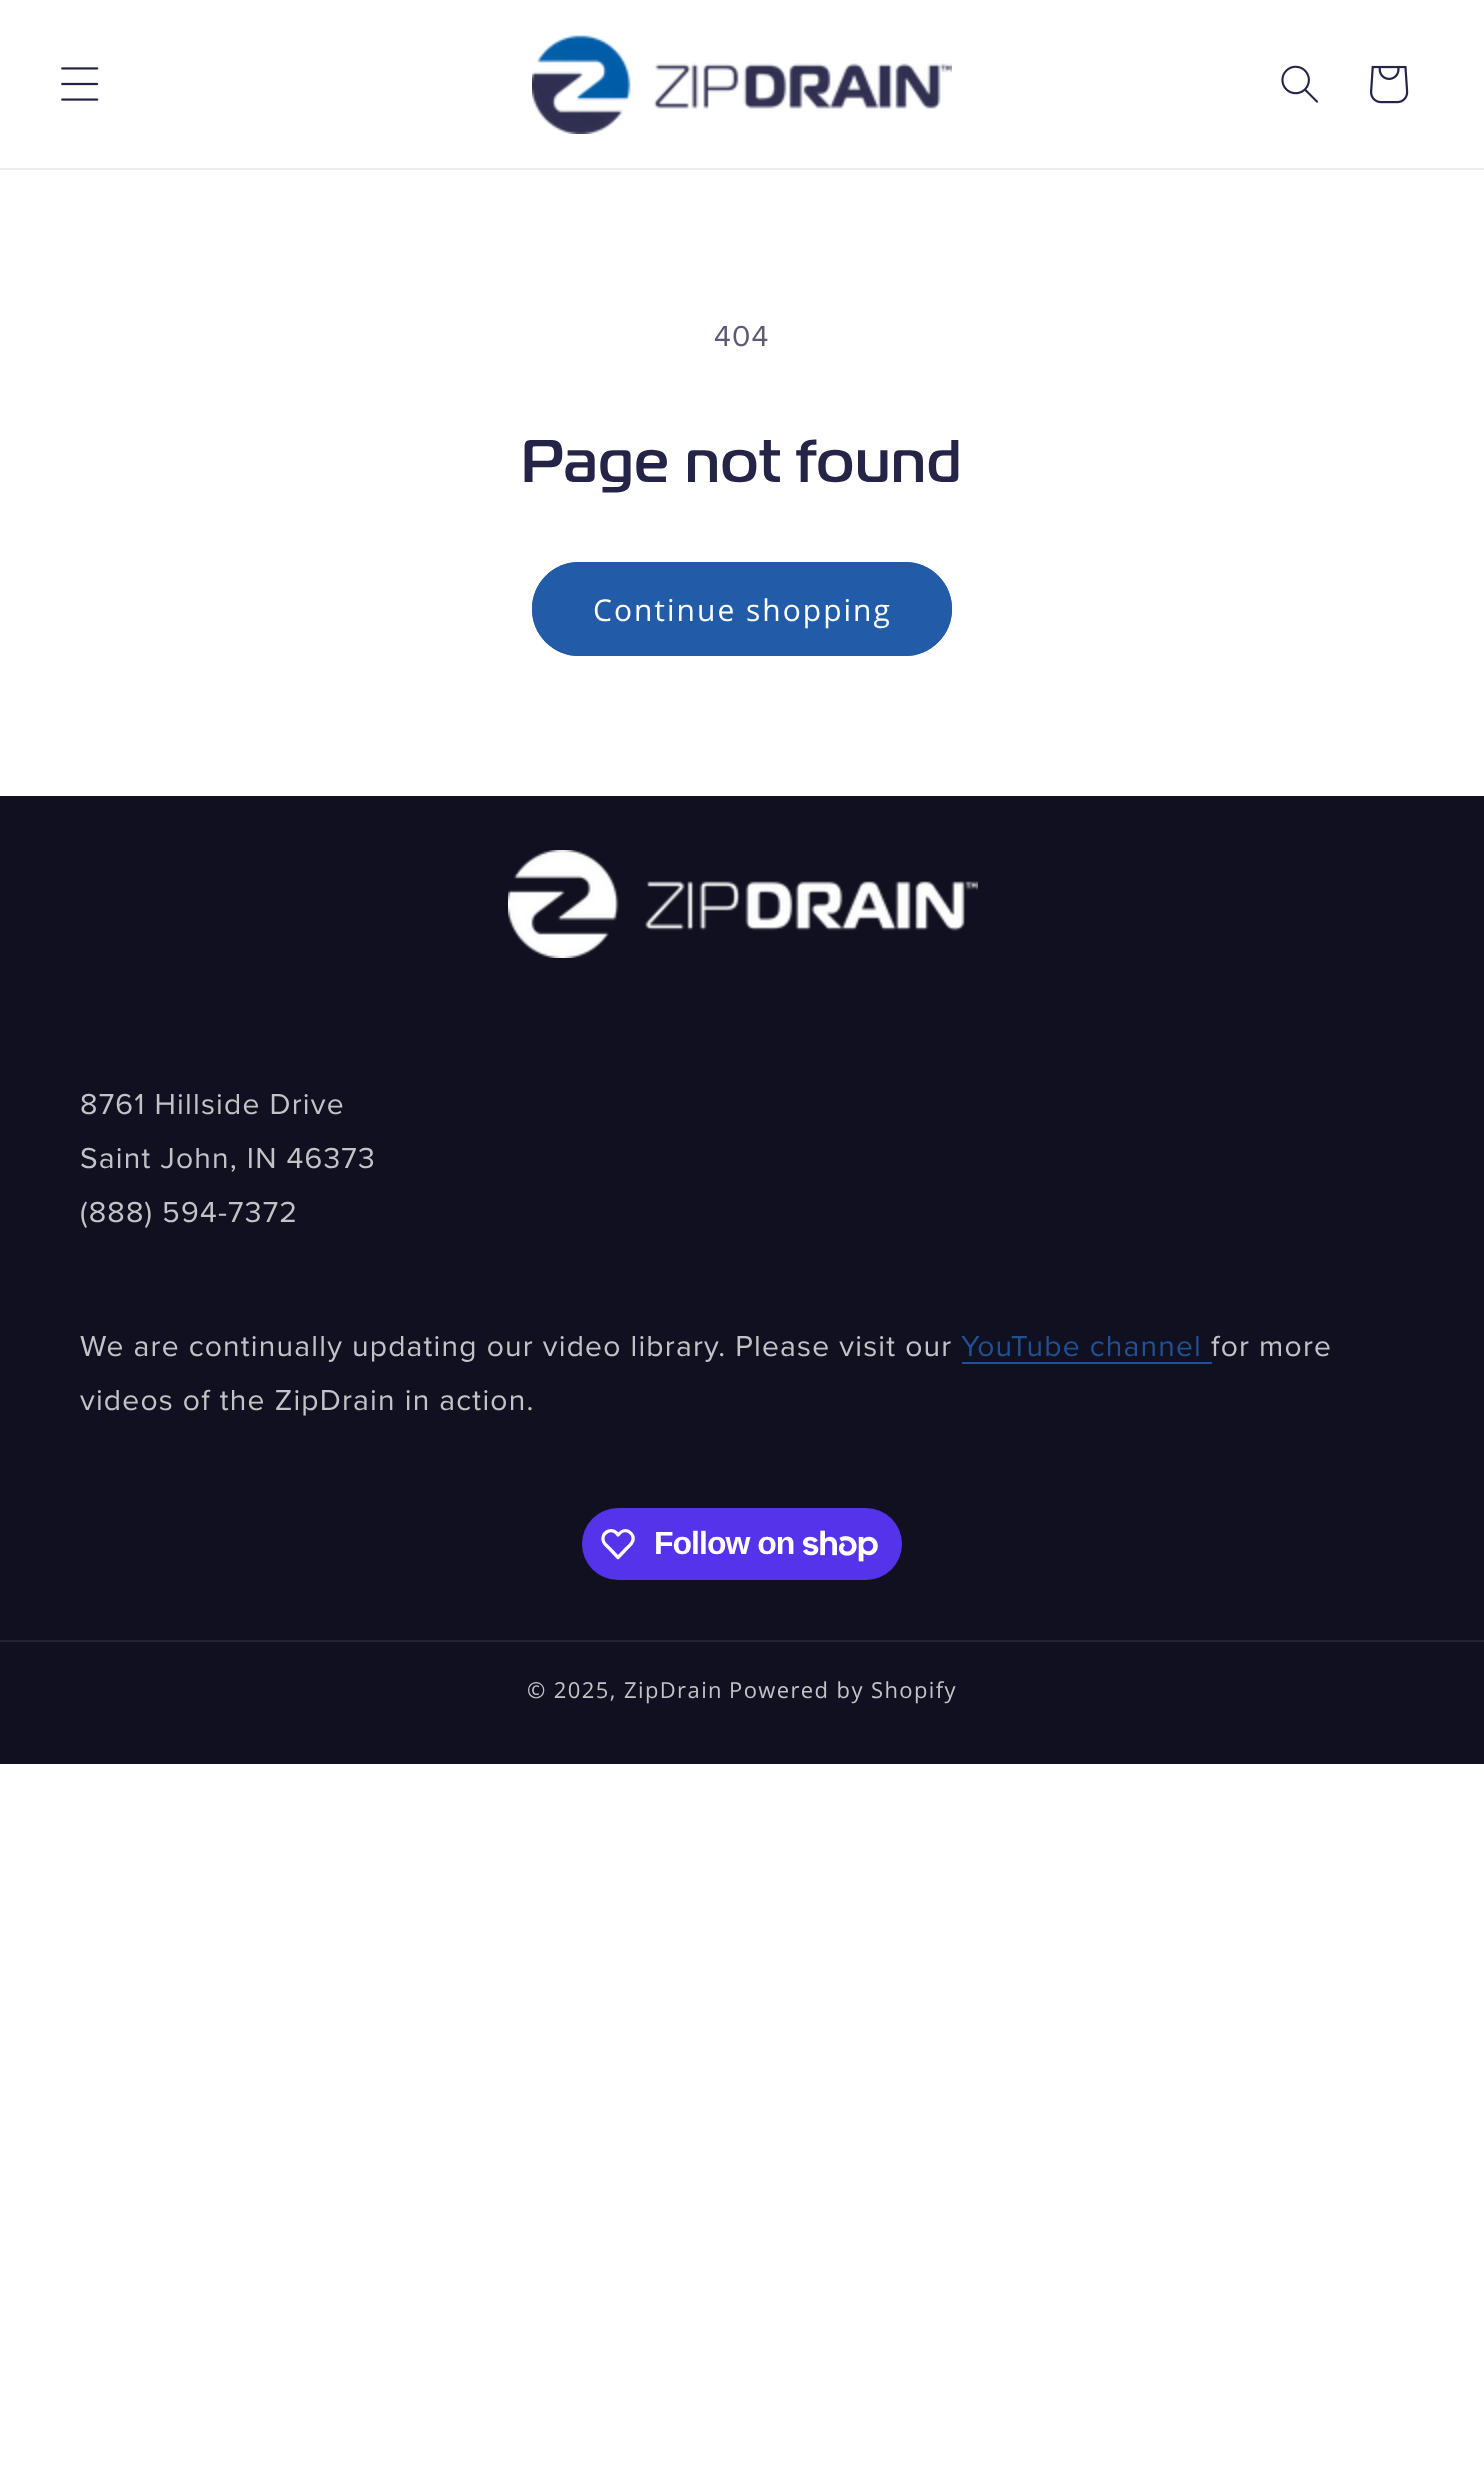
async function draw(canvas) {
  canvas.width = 1484;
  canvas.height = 2486;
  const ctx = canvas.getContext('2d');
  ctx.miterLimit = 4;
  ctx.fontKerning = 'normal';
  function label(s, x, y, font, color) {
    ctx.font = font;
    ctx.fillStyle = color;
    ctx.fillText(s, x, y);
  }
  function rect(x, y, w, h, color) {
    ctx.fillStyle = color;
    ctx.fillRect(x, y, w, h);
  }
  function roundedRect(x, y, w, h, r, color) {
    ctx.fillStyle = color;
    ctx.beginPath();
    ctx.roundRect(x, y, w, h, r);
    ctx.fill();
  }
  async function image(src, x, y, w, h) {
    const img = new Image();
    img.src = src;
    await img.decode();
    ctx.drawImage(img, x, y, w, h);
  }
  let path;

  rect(0, 0, 1484, 2486, '#fff');
  rect(0, 168, 1484, 2, '#ededf0');
  await image('assets/img1.png', 61, 67, 38, 34);
  await image('assets/img2.png', 532, 35, 420, 99);
  await image('assets/img3.png', 1281, 65, 37, 38);
  await image('assets/img4.png', 1370, 65, 39, 39);
  ctx.letterSpacing = '1.2px';
  label('404', 714, 346, '30px Proxima Nova', '#5b5b75');
  label('Page not found', 521, 482, '500 60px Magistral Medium', '#242447');
  roundedRect(532, 562, 420, 94, 47, '#225ca8');
  ctx.beginPath();
  ctx.roundRect(533, 563, 418, 92, 46);
  ctx.strokeStyle = '#225ca8';
  ctx.lineWidth = 2;
  ctx.stroke();
  ctx.letterSpacing = '2px';
  label('Continue shopping', 593, 621, '30px Open Sans', '#fff');
  rect(0, 796, 1484, 968, '#101020');
  await image('assets/img5.png', 508, 850, 470, 108);
  ctx.letterSpacing = '1.2px';
  label('8761 Hillside Drive', 80, 1114, '30px Proxima Nova', '#c3c3c7');
  label('Saint John, IN 46373', 80, 1168, '30px Proxima Nova', '#c3c3c7');
  label('(888) 594-7372', 80, 1222, '30px Proxima Nova', '#c3c3c7');
  label('We are continually updating our video library. Please visit our', 80, 1356, '30px Proxima Nova', '#c3c3c7');
  label('YouTube channel', 961, 1356, '30px Proxima Nova', '#1f5194');
  rect(962, 1362, 250, 2, '#1f5194');
  label('for more', 1211, 1356, '30px Proxima Nova', '#c3c3c7');
  label('videos of the ZipDrain in action.', 80, 1410, '30px Proxima Nova', '#c3c3c7');
  roundedRect(582, 1508, 320, 72, 36, '#5433eb');
  path = new Path2D('M616.5 1533L618 1535C619.5 1533.5 621 1531.5 623 1531C629 1529 635 1535.5 632.5 1541.5C631.5 1544.5 628.5 1546.5 626.5 1548.5L618 1557.5L609.5 1548.5C607.5 1546.5 604.5 1544.5 603.5 1541.5C600.5 1533.5 610.5 1527 616.5 1533Z');
  ctx.strokeStyle = '#fff';
  ctx.lineWidth = 3.3;
  ctx.lineJoin = 'round';
  ctx.stroke(path);
  ctx.letterSpacing = '-1px';
  label('Follow on', 654, 1554, 'bold 32px Liberation Sans', '#fff');
  await image('assets/img6.png', 803, 1530, 75, 32);
  rect(0, 1640, 1484, 2, '#232332');
  ctx.letterSpacing = '1.4px';
  label('© 2025, ZipDrain', 527, 1698, '22px Open Sans', '#c3c3c7');
  label('Powered by Shopify', 729, 1698, '22px Open Sans', '#c3c3c7');
}

draw(document.querySelector('canvas'));
